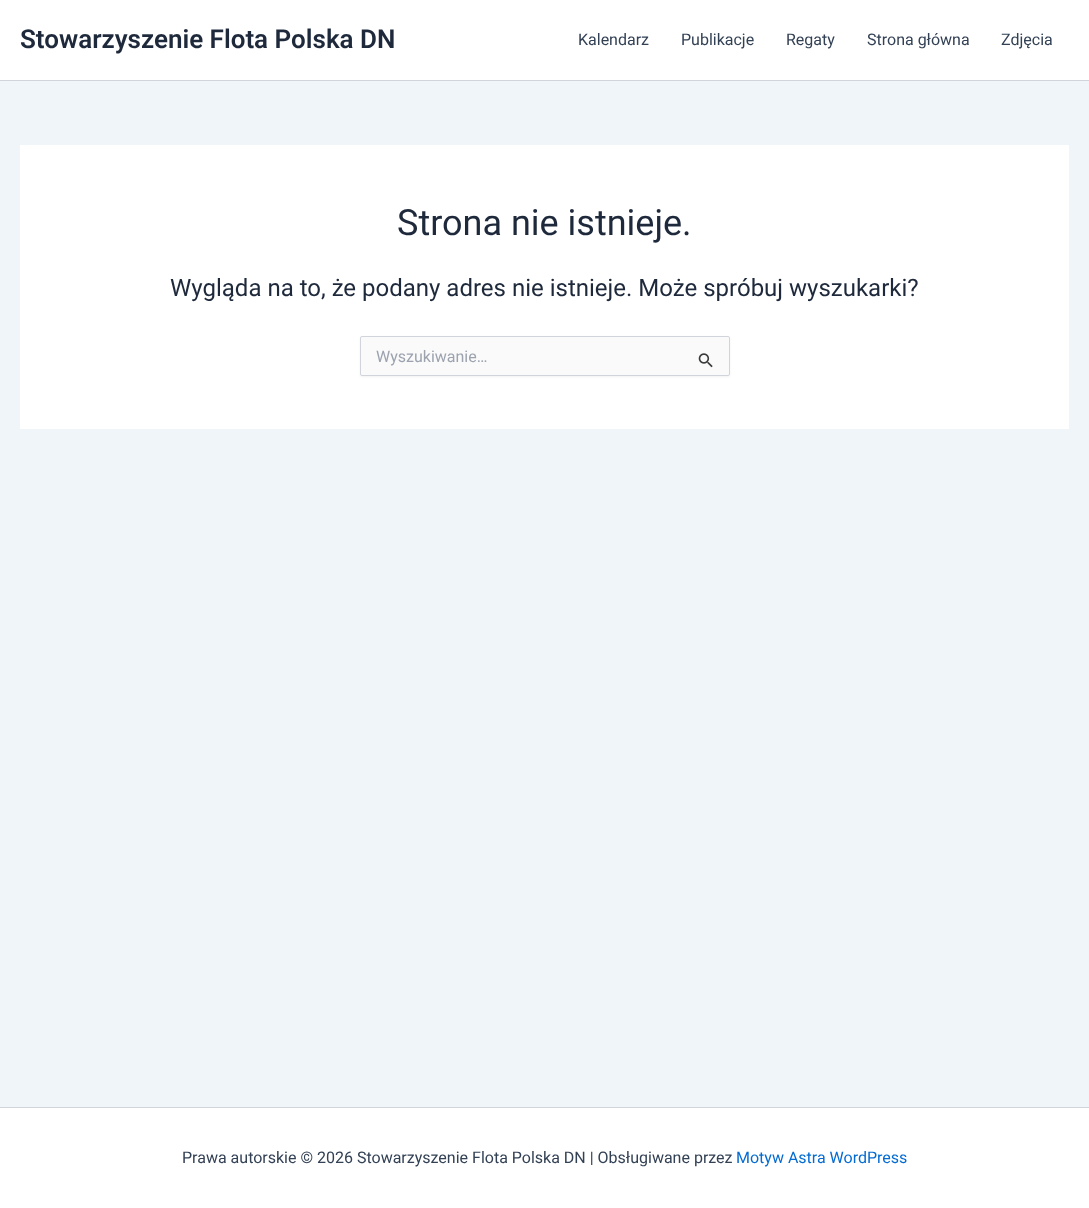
async function draw(canvas) {
  canvas.width = 1089;
  canvas.height = 1208;
  const ctx = canvas.getContext('2d');
  ctx.miterLimit = 4;
  ctx.fontKerning = 'normal';
  function label(s, x, y, font, color) {
    ctx.font = font;
    ctx.fillStyle = color;
    ctx.fillText(s, x, y);
  }
  function rect(x, y, w, h, color) {
    ctx.fillStyle = color;
    ctx.fillRect(x, y, w, h);
  }
  async function image(src, x, y, w, h) {
    const img = new Image();
    img.src = src;
    await img.decode();
    ctx.drawImage(img, x, y, w, h);
  }

  rect(0, 0, 1089, 1208, '#f0f5fa');
  rect(0, 0, 1089, 80, '#fff');
  rect(0, 80, 1089, 1, '#d1d5db');
  label('Stowarzyszenie Flota Polska DN', 20, 48, '600 26px Roboto', '#1e293b');
  label('Kalendarz', 578, 45, '16px Roboto', '#334155');
  label('Publikacje', 681, 45, '16px Roboto', '#334155');
  label('Regaty', 786, 45, '16px Roboto', '#334155');
  label('Strona główna', 867, 45, '16px Roboto', '#334155');
  label('Zdjęcia', 1001, 45, '16px Roboto', '#334155');
  rect(20, 145, 1049, 284, '#fff');
  label('Strona nie istnieje.', 397, 235, '36px Roboto', '#1e293b');
  label('Wygląda na to, że podany adres nie istnieje. Może spróbuj wyszukarki?', 170, 296, '24px Roboto', '#1e293b');
  ctx.fillStyle = '#0000000d';
  ctx.filter = 'blur(1px)';
  ctx.beginPath();
  ctx.roundRect(360, 337, 370, 40, 2);
  ctx.fill();
  ctx.filter = 'none';
  ctx.fillStyle = '#fafafa';
  ctx.beginPath();
  ctx.roundRect(360.5, 336.5, 369, 39, 1.5);
  ctx.fill();
  ctx.strokeStyle = '#d1d5db';
  ctx.stroke();
  label('Wyszukiwanie…', 376, 362, '16px Roboto', '#9ca3af');
  await image('assets/img1.png', 698, 353, 15, 15);
  rect(0, 1108, 1089, 100, '#fff');
  rect(0, 1107, 1089, 1, '#d1d5db');
  label('Prawa autorskie © 2026 Stowarzyszenie Flota Polska DN | Obsługiwane przez', 182, 1163, '16px Roboto', '#334155');
  label('Motyw Astra WordPress', 736, 1163, '16px Roboto', '#046bd2');
}

draw(document.querySelector('canvas'));
